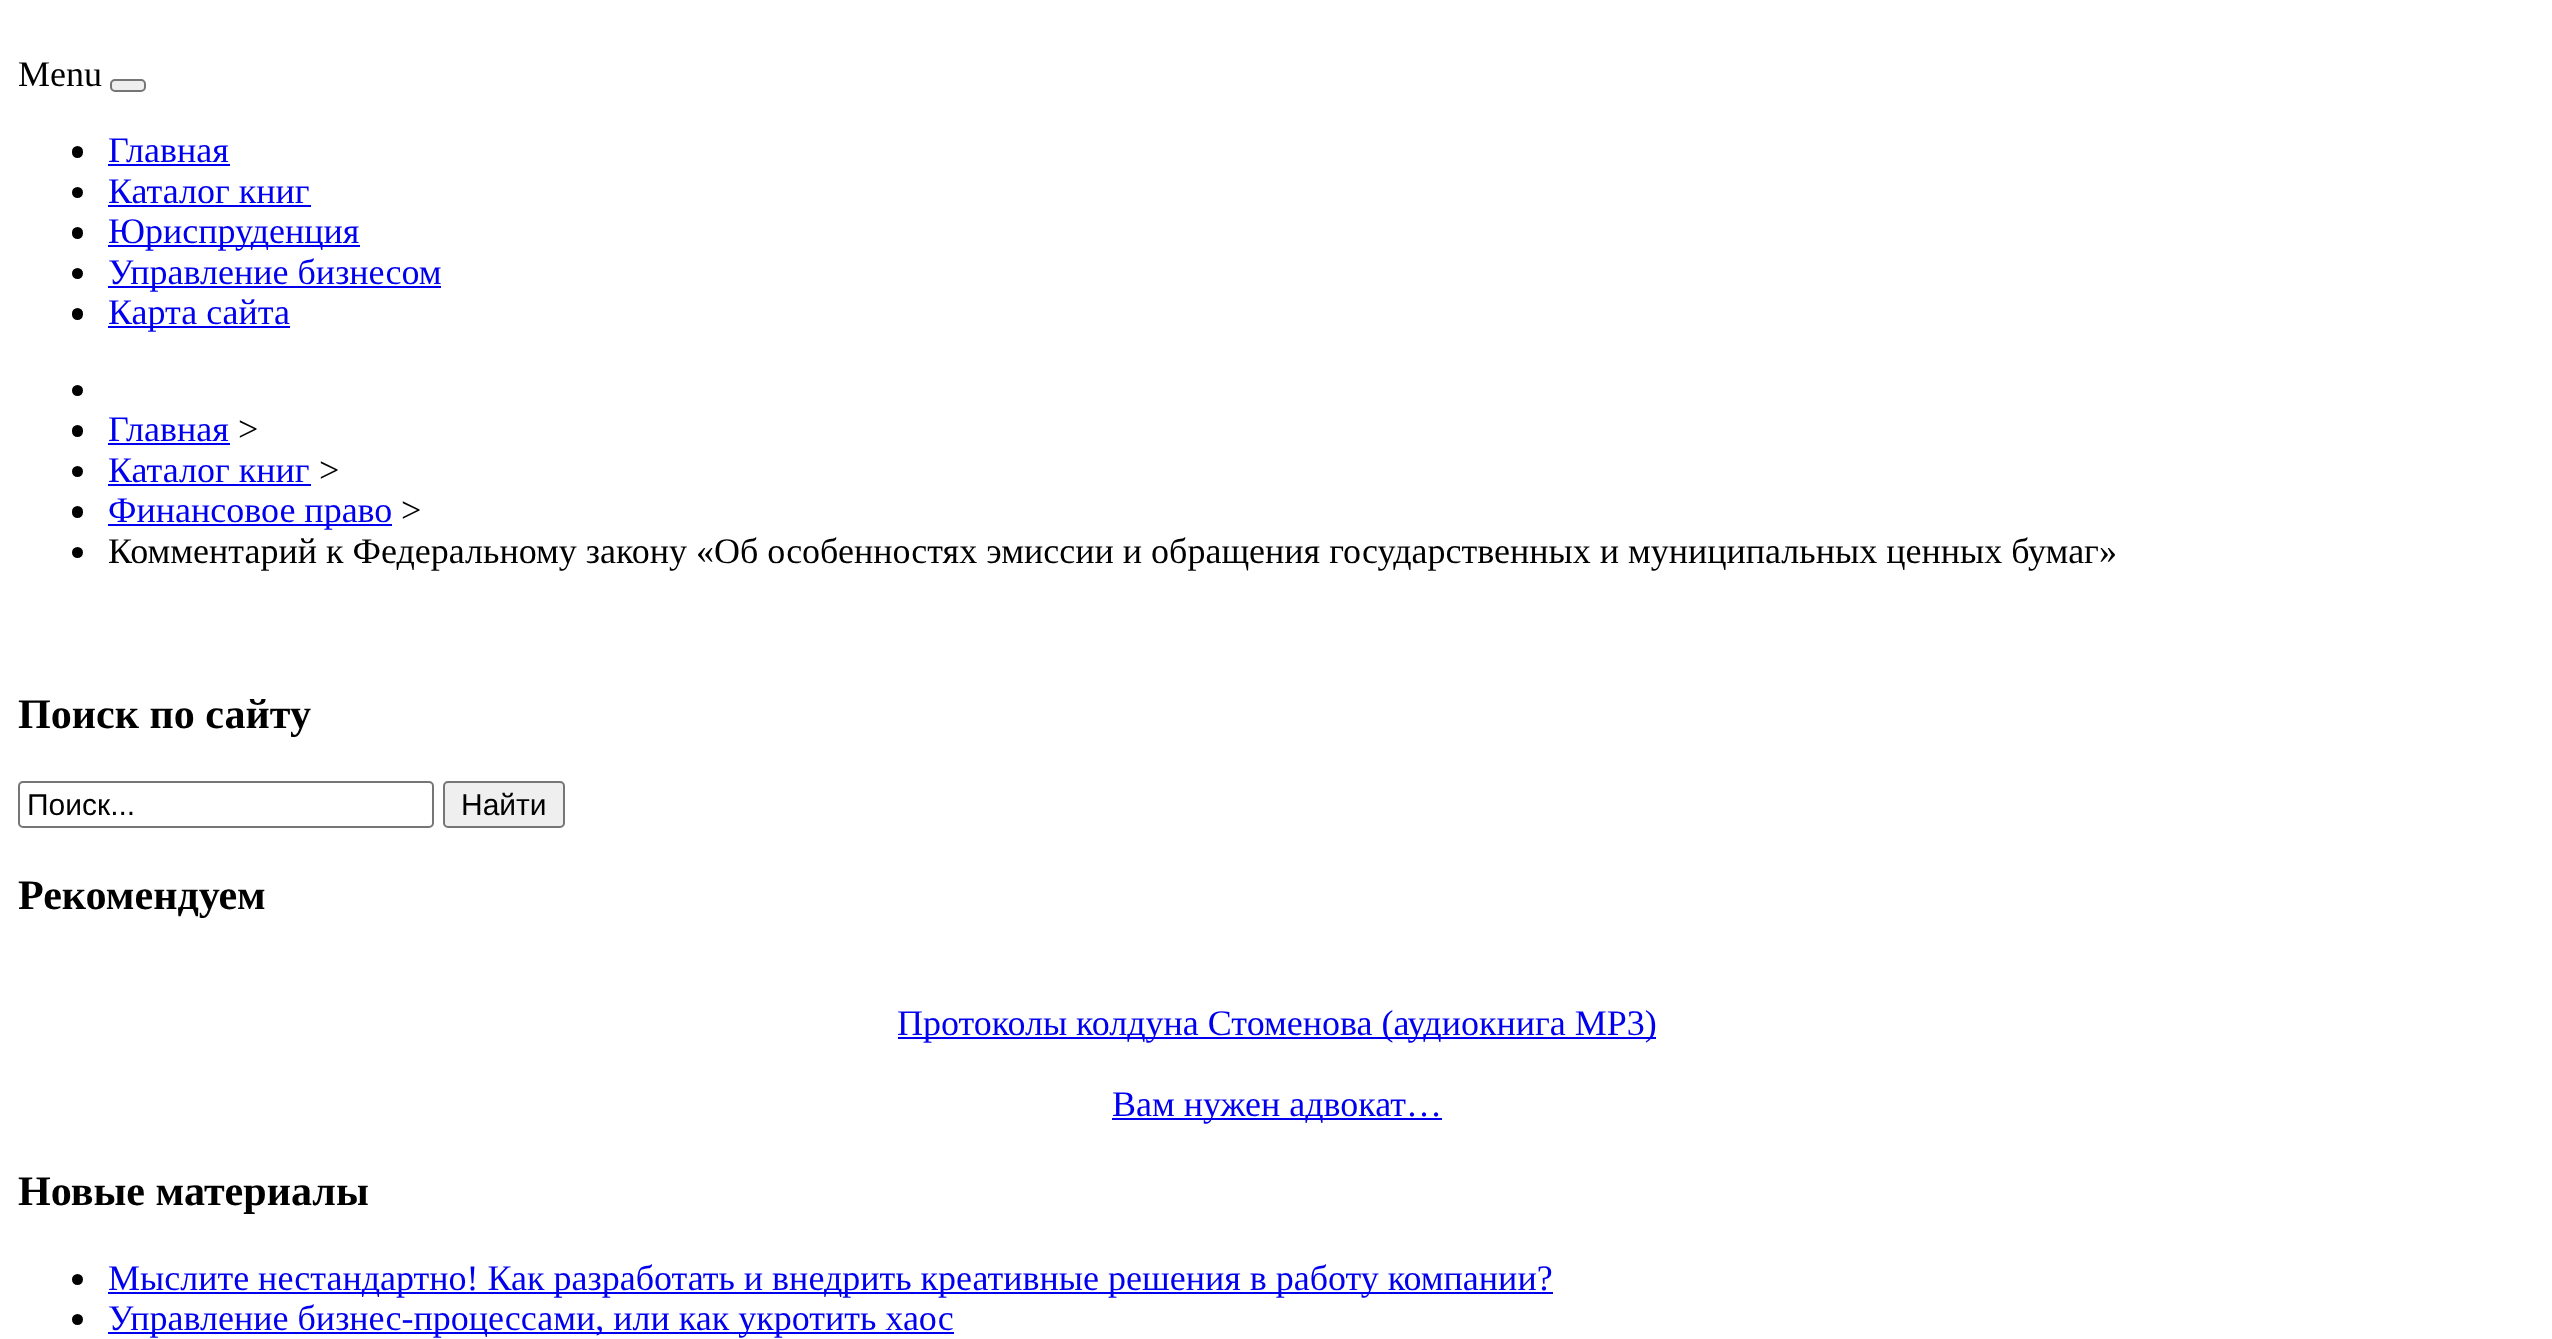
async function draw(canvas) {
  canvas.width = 2552;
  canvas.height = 1339;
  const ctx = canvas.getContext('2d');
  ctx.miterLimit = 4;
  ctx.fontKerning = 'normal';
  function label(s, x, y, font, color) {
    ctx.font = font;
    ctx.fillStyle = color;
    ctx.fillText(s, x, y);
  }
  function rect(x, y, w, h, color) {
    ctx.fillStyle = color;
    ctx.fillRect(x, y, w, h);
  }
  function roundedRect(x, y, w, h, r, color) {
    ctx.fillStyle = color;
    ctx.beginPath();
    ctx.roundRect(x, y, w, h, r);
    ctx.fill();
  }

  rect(0, 0, 2552, 1339, '#fff');
  label('Menu', 18, 86, '36px Liberation Serif', '#000');
  ctx.fillStyle = '#efefef';
  ctx.beginPath();
  ctx.roundRect(111, 80, 34, 11, 4);
  ctx.fill();
  ctx.strokeStyle = '#767676';
  ctx.lineWidth = 2;
  ctx.stroke();
  roundedRect(72, 146, 11, 12, 5.5, '#000');
  label('Главная', 108, 162, '36px Liberation Serif', '#00e');
  rect(108, 164, 122, 2, '#00e');
  ctx.fillStyle = '#000';
  ctx.beginPath();
  ctx.arc(77.5, 192.5, 5.5, 0, 2 * Math.PI);
  ctx.fill();
  label('Каталог книг', 108, 203, '36px Liberation Serif', '#00e');
  rect(108, 205, 203, 2, '#00e');
  roundedRect(72, 227, 11, 12, 5.5, '#000');
  rect(108, 245, 252, 2, '#00e');
  label('Юриспруденция', 108, 243, '36px Liberation Serif', '#00e');
  ctx.fillStyle = '#000';
  ctx.beginPath();
  ctx.arc(77.5, 273.5, 5.5, 0, 2 * Math.PI);
  ctx.fill();
  rect(108, 286, 333, 2, '#00e');
  label('Управление бизнесом', 108, 284, '36px Liberation Serif', '#00e');
  roundedRect(72, 308, 11, 12, 5.5, '#000');
  rect(108, 326, 182, 2, '#00e');
  label('Карта сайта', 108, 324, '36px Liberation Serif', '#00e');
  ctx.fillStyle = '#000';
  ctx.beginPath();
  ctx.arc(77.5, 390.5, 5.5, 0, 2 * Math.PI);
  ctx.fill();
  roundedRect(72, 425, 11, 12, 5.5, '#000');
  label('Главная', 108, 441, '36px Liberation Serif', '#00e');
  rect(108, 443, 122, 2, '#00e');
  label('>', 238, 441, '36px Liberation Serif', '#000');
  ctx.beginPath();
  ctx.arc(77.5, 471.5, 5.5, 0, 2 * Math.PI);
  ctx.fill();
  label('Каталог книг', 108, 482, '36px Liberation Serif', '#00e');
  rect(108, 484, 203, 2, '#00e');
  label('>', 319, 482, '36px Liberation Serif', '#000');
  roundedRect(72, 506, 11, 12, 5.5, '#000');
  rect(108, 524, 284, 2, '#00e');
  label('Финансовое право', 108, 522, '36px Liberation Serif', '#00e');
  label('>', 401, 522, '36px Liberation Serif', '#000');
  ctx.beginPath();
  ctx.arc(77.5, 552.5, 5.5, 0, 2 * Math.PI);
  ctx.fill();
  label('Комментарий к Федеральному закону «Об особенностях эмиссии и обращения государственных и муниципальных ценных бумаг»', 108, 563, '36px Liberation Serif', '#000');
  label('Поиск по сайту', 18, 728, 'bold 42.1px Liberation Serif', '#000');
  ctx.beginPath();
  ctx.roundRect(19, 782, 414, 45, 4);
  ctx.stroke();
  label('Поиск...', 27, 815, '30px Liberation Sans', '#000');
  ctx.fillStyle = '#efefef';
  ctx.beginPath();
  ctx.roundRect(444, 782, 120, 45, 4);
  ctx.fill();
  ctx.stroke();
  label('Найти', 461, 815, '30px Liberation Sans', '#000');
  label('Рекомендуем', 18, 909, 'bold 42.1px Liberation Serif', '#000');
  rect(898, 1037, 758, 2, '#00e');
  label('Протоколы колдуна Стоменова (аудиокнига MP3)', 897, 1035, '36px Liberation Serif', '#00e');
  rect(1112, 1118, 330, 2, '#00e');
  label('Вам нужен адвокат…', 1112, 1116, '36px Liberation Serif', '#00e');
  label('Новые материалы', 18, 1205, 'bold 42.1px Liberation Serif', '#000');
  ctx.beginPath();
  ctx.arc(77.5, 1279.5, 5.5, 0, 2 * Math.PI);
  ctx.fill();
  rect(108, 1292, 1445, 2, '#00e');
  label('Мыслите нестандартно! Как разработать и внедрить креативные решения в работу компании?', 108, 1290, '36px Liberation Serif', '#00e');
  ctx.fillStyle = '#000';
  ctx.beginPath();
  ctx.arc(77.5, 1319.5, 5.5, 0, 2 * Math.PI);
  ctx.fill();
  rect(108, 1332, 846, 2, '#00e');
  label('Управление бизнес-процессами, или как укротить хаос', 108, 1330, '36px Liberation Serif', '#00e');
}

draw(document.querySelector('canvas'));
